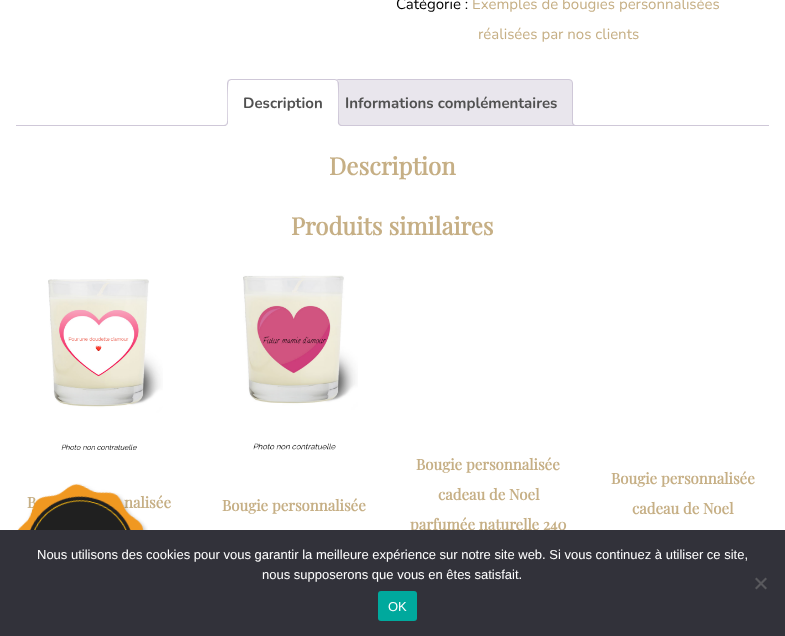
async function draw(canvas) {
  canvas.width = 785;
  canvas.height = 636;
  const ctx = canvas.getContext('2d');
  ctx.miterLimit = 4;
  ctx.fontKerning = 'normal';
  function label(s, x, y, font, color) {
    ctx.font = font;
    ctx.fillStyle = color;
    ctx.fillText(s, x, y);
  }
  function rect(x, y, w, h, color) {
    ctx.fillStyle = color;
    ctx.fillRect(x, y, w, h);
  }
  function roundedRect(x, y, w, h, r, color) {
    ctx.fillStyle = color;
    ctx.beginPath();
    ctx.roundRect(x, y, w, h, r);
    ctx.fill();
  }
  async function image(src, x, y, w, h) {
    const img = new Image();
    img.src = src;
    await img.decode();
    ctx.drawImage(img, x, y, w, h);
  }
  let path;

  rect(0, 0, 785, 636, '#fff');
  label('Catégorie :', 396, 9, '15px Nunito', '#000');
  label('Exemples de bougies personnalisées', 472, 9, '15px Nunito', '#c6af85');
  label('réalisées par nos clients', 478, 39, '15px Nunito', '#c6af85');
  ctx.fillStyle = '#e9e6ed';
  ctx.beginPath();
  ctx.roundRect(329.5, 79.5, 243, 46, [3.5, 3.5, 0, 0]);
  ctx.fill();
  ctx.strokeStyle = '#cfc8d8';
  ctx.stroke();
  ctx.save();
  ctx.beginPath();
  ctx.rect(16, 79, 753, 47);
  ctx.clip();
  path = new Path2D('M570 123C570 126.5 571.5 128 575 128V126C573.5 125.5 572.5 124.5 572 123Z');
  ctx.fill(path);
  ctx.restore();
  ctx.fillStyle = '#cfc8d8';
  path = new Path2D('M572 121H577V126C574.5 126 572 125 572 122ZM573 121H577V125C575 125 573 124.5 573 122Z');
  ctx.fill(path, 'evenodd');
  rect(16, 125, 753, 1, '#cfc8d8');
  ctx.fillStyle = '#fff';
  ctx.beginPath();
  ctx.roundRect(227, 79, 112, 47, [4, 4, 0, 0]);
  ctx.fill();
  ctx.fillStyle = '#cfc8d8';
  path = new Path2D('M231 79L228 80L229 81L231 80H335L337 81L338 80L335 79Z');
  ctx.fill(path);
  path = new Path2D('M339 126V83C339 82 338 81 338 80L337 81C339 83 338 120 338 125Z');
  ctx.fill(path);
  ctx.fillStyle = '#fff';
  path = new Path2D('M339 126L338 125H228L227 126Z');
  ctx.fill(path);
  ctx.fillStyle = '#cfc8d8';
  path = new Path2D('M227 126L228 125C228 120 227 83 229 81L228 80L227 83Z');
  ctx.fill(path);
  label('Description', 243, 108, 'bold 15px Nunito', '#515151');
  ctx.save();
  ctx.beginPath();
  ctx.rect(16, 79, 753, 47);
  ctx.clip();
  ctx.fillStyle = '#fff';
  path = new Path2D('M225 126V128C228.5 128 230 126.5 230 123H228C227.5 124.5 226.5 125.5 225 126Z');
  ctx.fill(path);
  ctx.restore();
  ctx.fillStyle = '#cfc8d8';
  path = new Path2D('M223 121H228C228 124.5 226.5 126 223 126ZM223 121H227C227 124 226 125 223 125Z');
  ctx.fill(path, 'evenodd');
  ctx.save();
  ctx.beginPath();
  ctx.rect(16, 79, 753, 47);
  ctx.clip();
  ctx.fillStyle = '#fff';
  path = new Path2D('M336 123C336 126.5 337.5 128 341 128V126C339.5 125.5 338.5 124.5 338 123Z');
  ctx.fill(path);
  ctx.restore();
  path = new Path2D('M338 121H343V126C340.5 126 338 125 338 122ZM339 121H343V125C341 125 339 124.5 339 122Z');
  ctx.fill(path, 'evenodd');
  label('Informations complémentaires', 345, 108, 'bold 15px Nunito', '#515151');
  label('Description', 329, 175, 'bold 24px Playfair Display', '#c6af85');
  label('Produits similaires', 291, 235, 'bold 24px Playfair Display', '#c6af85');
  await image('assets/img1.png', 48, 279, 115, 171);
  label('B', 27, 508, 'bold 15px Playfair Display', '#c6af85');
  label('nalisée', 124, 508, 'bold 15px Playfair Display', '#c6af85');
  await image('assets/img2.png', 243, 275, 115, 175);
  label('Bougie personnalisée', 222, 511, 'bold 15px Playfair Display', '#c6af85');
  label('Bougie personnalisée', 416, 470, 'bold 15px Playfair Display', '#c6af85');
  label('cadeau de Noel', 438, 500, 'bold 15px Playfair Display', '#c6af85');
  label('parfumée naturelle 240', 410, 530, 'bold 15px Playfair Display', '#c6af85');
  label('Bougie personnalisée', 611, 484, 'bold 15px Playfair Display', '#c6af85');
  label('cadeau de Noel', 632, 514, 'bold 15px Playfair Display', '#c6af85');
  await image('assets/img3.png', 17, 483, 131, 47);
  rect(0, 530, 785, 106, '#32323a');
  label('Nous utilisons des cookies pour vous garantir la meilleure expérience sur notre site web. Si vous continuez à utiliser ce site,', 37, 559, '13px Liberation Sans', '#fff');
  label('nous supposerons que vous en êtes satisfait.', 262, 579, '13px Liberation Sans', '#fff');
  ctx.fillStyle = '#59595d';
  path = new Path2D('M765.5 577.5L767 579L756.5 589.5L755 588Z');
  ctx.fill(path);
  path = new Path2D('M755 579L756.5 577.5L767 588L765.5 589.5Z');
  ctx.fill(path);
  roundedRect(378, 591, 39, 30, 3, '#00a99d');
  label('OK', 388, 611, '13px Liberation Sans', '#fff');
}

draw(document.querySelector('canvas'));
